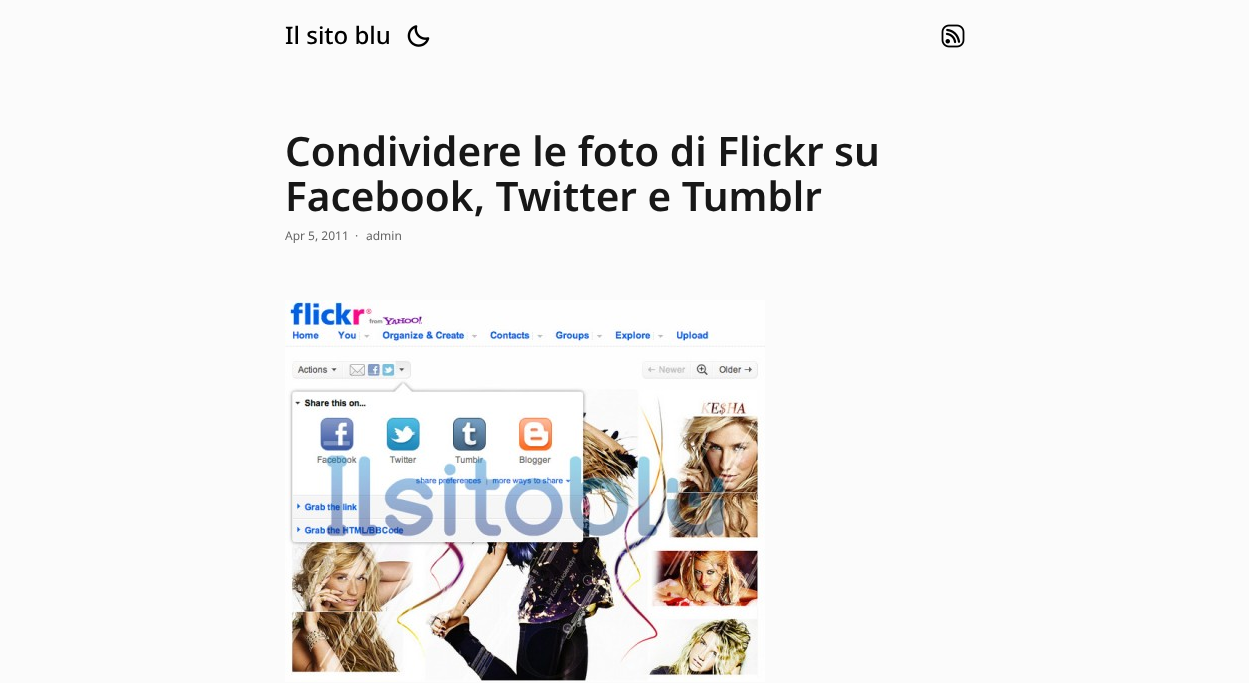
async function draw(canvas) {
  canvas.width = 1249;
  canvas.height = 683;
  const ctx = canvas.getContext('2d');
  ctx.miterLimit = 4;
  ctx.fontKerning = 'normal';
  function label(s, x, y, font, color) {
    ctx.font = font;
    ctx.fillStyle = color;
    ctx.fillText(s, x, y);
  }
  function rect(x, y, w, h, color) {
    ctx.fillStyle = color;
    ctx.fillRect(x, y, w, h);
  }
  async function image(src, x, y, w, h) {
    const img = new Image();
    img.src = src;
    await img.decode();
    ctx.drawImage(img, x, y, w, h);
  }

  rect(0, 0, 1249, 683, '#fbfbfb');
  label('Il sito blu', 285, 44, '500 24px Noto Sans', '#000');
  await image('assets/img1.png', 407, 25, 23, 22);
  await image('assets/img2.png', 941, 24, 24, 24);
  label('Condividere le foto di Flickr su', 285, 166, '600 40.5px Noto Sans', '#171717');
  label('Facebook, Twitter e Tumblr', 285, 211, '600 40.5px Noto Sans', '#171717');
  label('Apr 5, 2011', 285, 240, '12px Noto Sans', '#646464');
  label('·', 355, 240, '12px Noto Sans', '#646464');
  label('admin', 366, 240, '12px Noto Sans', '#646464');
  await image('assets/img3.png', 285, 300, 480, 382);
}

draw(document.querySelector('canvas'));
